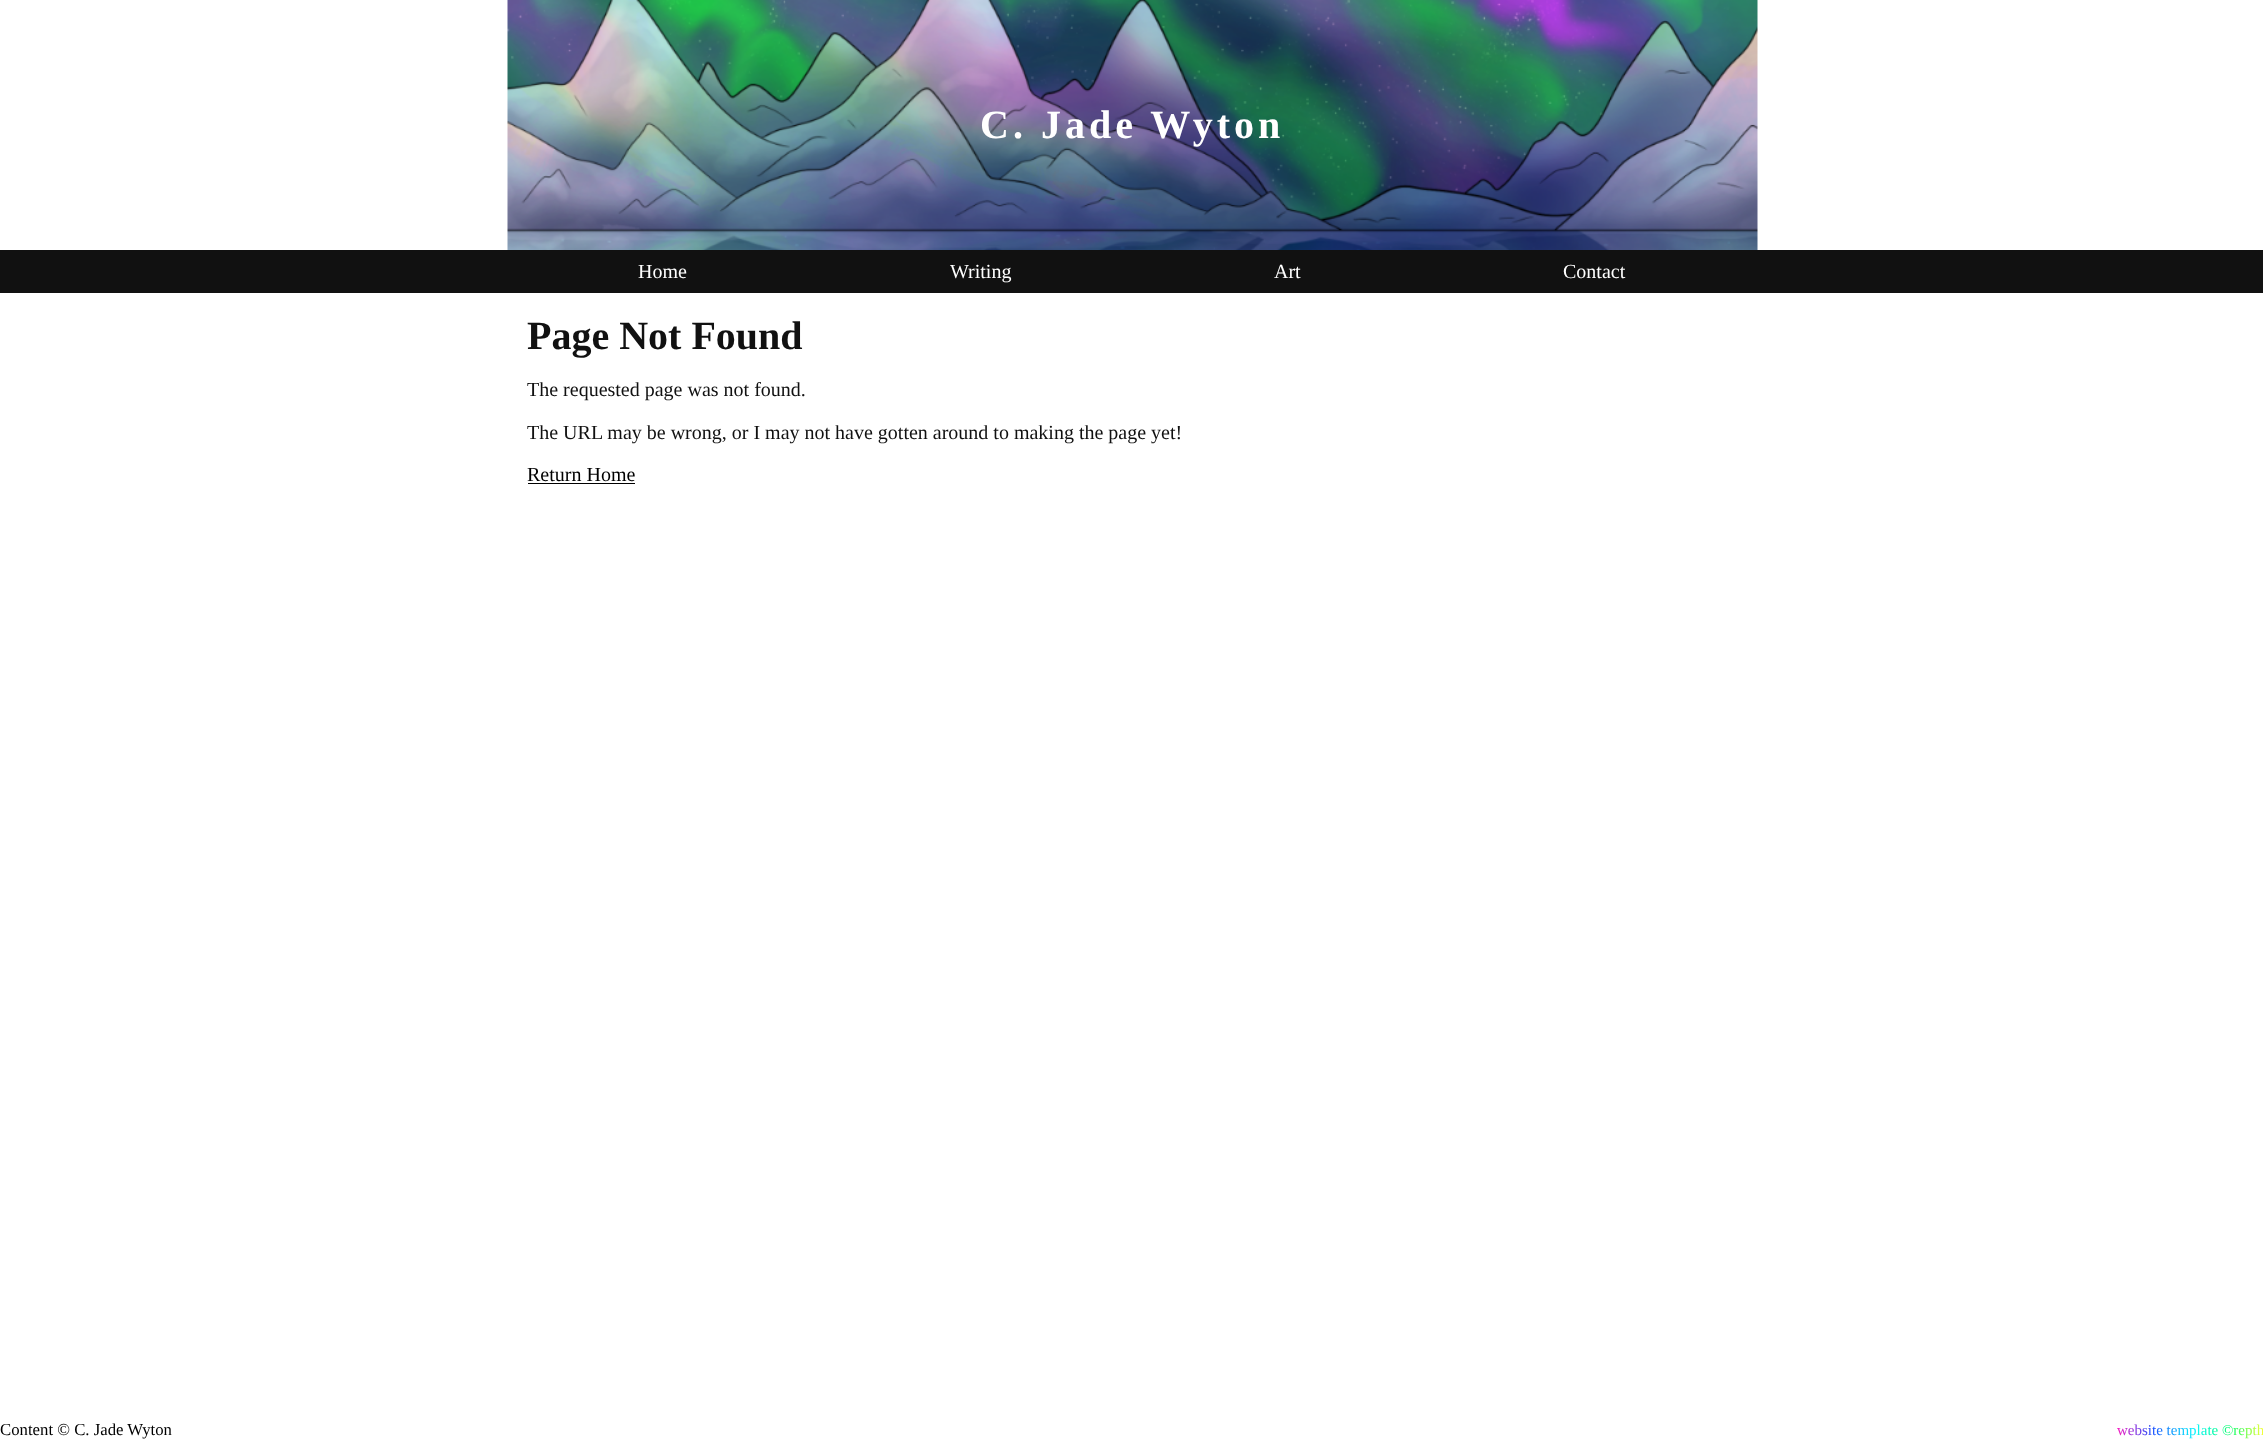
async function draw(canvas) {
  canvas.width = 2263;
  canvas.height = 1439;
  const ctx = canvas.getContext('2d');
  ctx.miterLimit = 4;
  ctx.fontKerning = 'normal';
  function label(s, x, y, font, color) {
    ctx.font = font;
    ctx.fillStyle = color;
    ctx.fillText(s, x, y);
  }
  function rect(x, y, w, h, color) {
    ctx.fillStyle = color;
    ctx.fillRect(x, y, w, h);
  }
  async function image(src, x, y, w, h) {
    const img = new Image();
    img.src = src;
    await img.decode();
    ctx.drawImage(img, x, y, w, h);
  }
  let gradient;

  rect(0, 0, 2263, 1439, '#fff');
  await image('assets/img1.png', 507, 0, 1251, 250);
  ctx.letterSpacing = '4px';
  label('C. Jade Wyton', 980, 138, 'bold 40px Liberation Serif', '#fff');
  rect(0, 250, 2263, 43, '#111');
  ctx.letterSpacing = '0px';
  label('Home', 638, 278, '20px Liberation Serif', '#fff');
  label('Writing', 950, 278, '20px Liberation Serif', '#fff');
  label('Art', 1274, 278, '20px Liberation Serif', '#fff');
  label('Contact', 1563, 278, '20px Liberation Serif', '#fff');
  label('Page Not Found', 527, 349, 'bold 40px Liberation Serif', '#111');
  label('The requested page was not found.', 527, 396, '20px Liberation Serif', '#111');
  label('The URL may be wrong, or I may not have gotten around to making the page yet!', 527, 439, '20px Liberation Serif', '#111');
  label('Return Home', 527, 481, '20px Liberation Serif', '#000');
  rect(528, 483, 107, 1, '#000');
  label('Content © C. Jade Wyton', 0, 1435, '16.75px Liberation Serif', '#000');
  ctx.font = '15px Liberation Serif';
  gradient = ctx.createLinearGradient(2117, 1430, 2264, 1430);
  gradient.addColorStop(0, '#fa1fc1');
  gradient.addColorStop(0.25, '#1d55ff');
  gradient.addColorStop(0.53, '#0df6fc');
  gradient.addColorStop(0.77, '#0f6');
  gradient.addColorStop(1, '#fbff38');
  ctx.fillStyle = gradient;
  ctx.fillText('website template ©repth', 2117, 1435);
}

draw(document.querySelector('canvas'));
